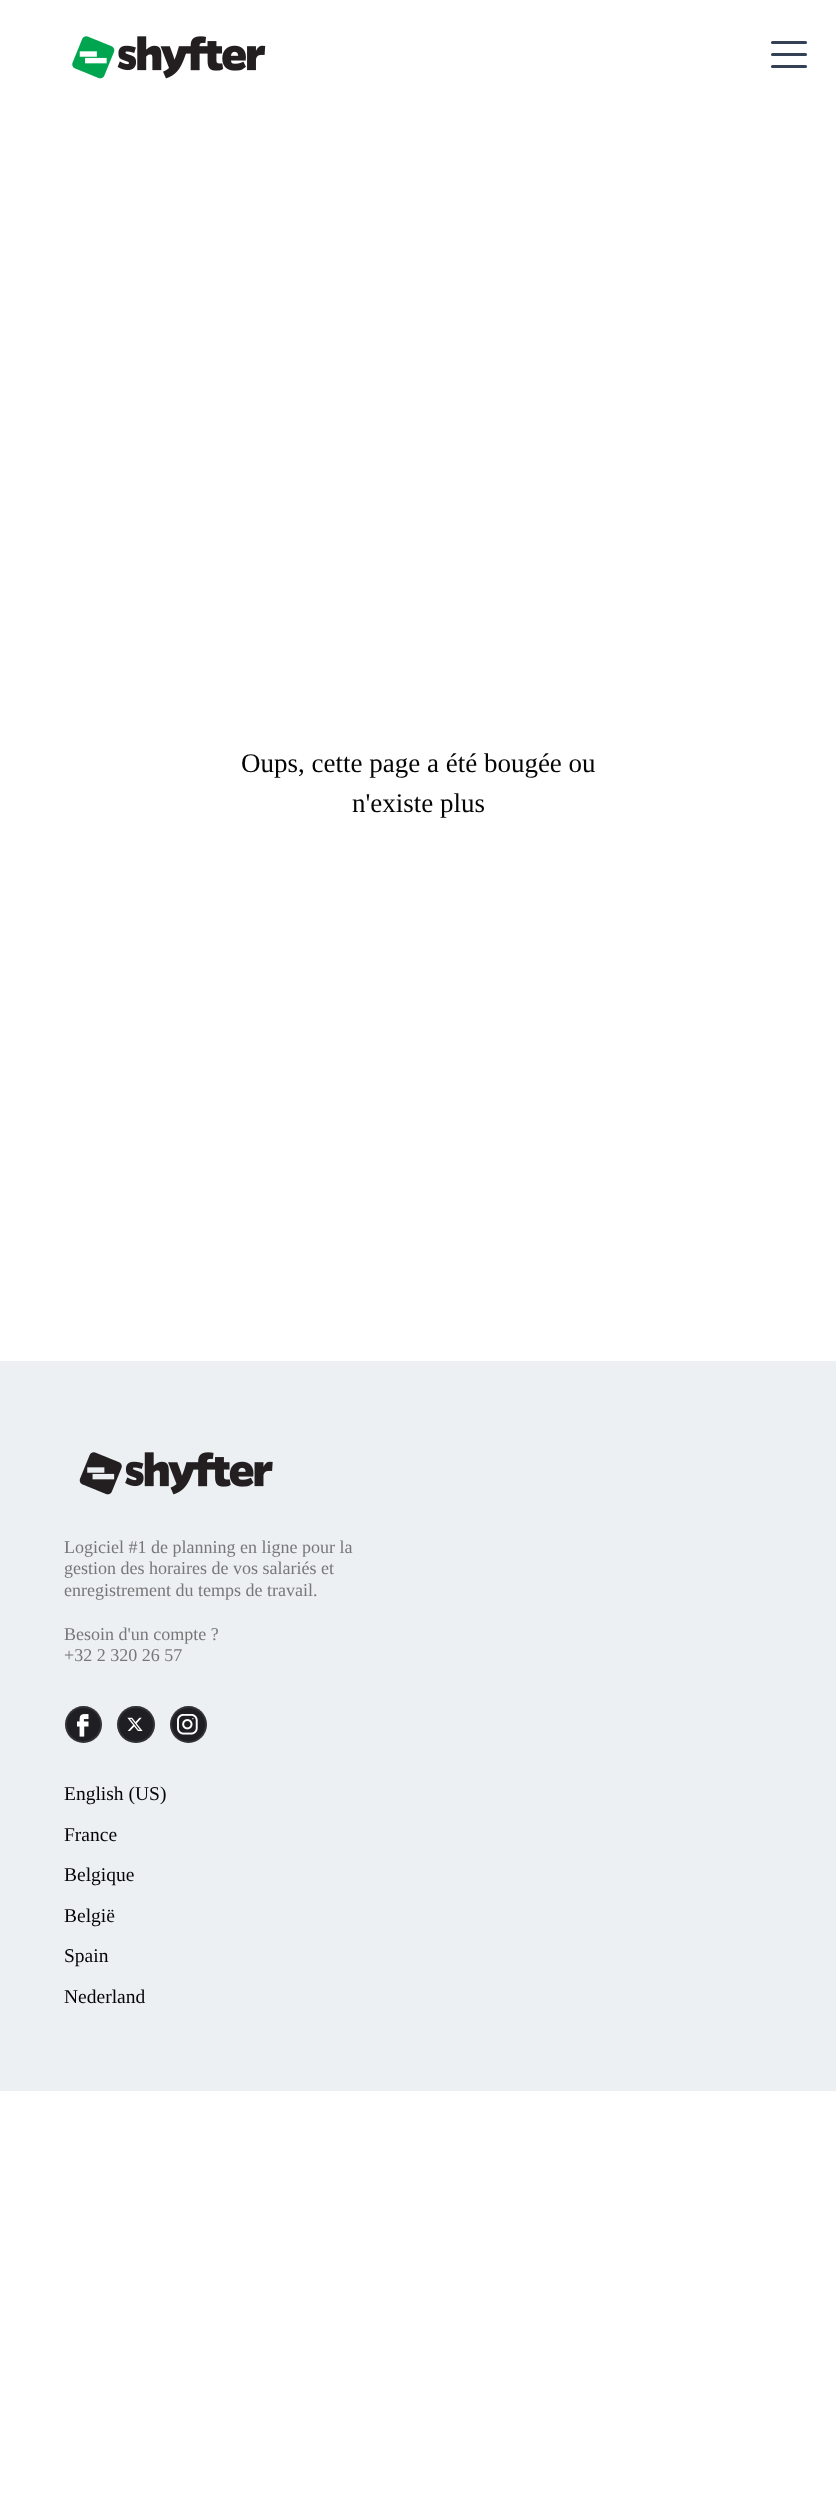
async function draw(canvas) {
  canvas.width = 836;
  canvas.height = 2504;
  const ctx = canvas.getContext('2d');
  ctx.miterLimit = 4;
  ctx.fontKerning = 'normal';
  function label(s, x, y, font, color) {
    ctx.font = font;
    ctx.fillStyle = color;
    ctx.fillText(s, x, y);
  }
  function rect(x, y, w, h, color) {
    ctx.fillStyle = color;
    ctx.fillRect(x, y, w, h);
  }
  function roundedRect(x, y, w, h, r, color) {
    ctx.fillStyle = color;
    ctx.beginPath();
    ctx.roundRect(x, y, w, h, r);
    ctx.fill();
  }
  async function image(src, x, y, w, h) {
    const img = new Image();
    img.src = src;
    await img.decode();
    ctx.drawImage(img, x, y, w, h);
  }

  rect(0, 0, 836, 2504, '#fff');
  await image('assets/img1.png', 72, 36, 194, 43);
  roundedRect(771, 41, 36, 3, 1.5, '#344054');
  roundedRect(771, 53, 36, 3, 1.5, '#344054');
  roundedRect(771, 65, 36, 3, 1.5, '#344054');
  label('Oups, cette page a été bougée ou', 241, 772, '27px Liberation Serif', '#050505');
  label('n\'existe plus', 352, 812, '27px Liberation Serif', '#050505');
  rect(0, 1361, 836, 730, '#ecf0f3');
  await image('assets/img2.png', 79, 1452, 194, 43);
  label('Logiciel #1 de planning en ligne pour la', 64, 1553, '18px Liberation Serif', '#777');
  label('gestion des horaires de vos salariés et', 64, 1574, '18px Liberation Serif', '#777');
  label('enregistrement du temps de travail.', 64, 1596, '18px Liberation Serif', '#777');
  label('Besoin d\'un compte ?', 64, 1640, '18px Liberation Serif', '#777');
  label('+32 2 320 26 57', 64, 1661, '18px Liberation Serif', '#777');
  ctx.fillStyle = '#1f1f23';
  ctx.beginPath();
  ctx.arc(83.5, 1724.5, 18.5, 0, 2 * Math.PI);
  ctx.fill();
  ctx.beginPath();
  ctx.arc(83.5, 1724.5, 17.5, 0, 2 * Math.PI);
  ctx.strokeStyle = '#dddddd1a';
  ctx.lineWidth = 2;
  ctx.stroke();
  await image('assets/img3.png', 77, 1714, 12, 23);
  roundedRect(117, 1706, 38, 37, 18.5, '#1f1f23');
  ctx.beginPath();
  ctx.roundRect(118, 1707, 36, 35, 17.5);
  ctx.stroke();
  await image('assets/img4.png', 127, 1717, 16, 14);
  ctx.beginPath();
  ctx.arc(188.5, 1724.5, 18.5, 0, 2 * Math.PI);
  ctx.fill();
  ctx.beginPath();
  ctx.arc(188.5, 1724.5, 17.5, 0, 2 * Math.PI);
  ctx.stroke();
  await image('assets/img5.png', 177, 1714, 21, 21);
  label('English (US)', 64, 1800, '19.5px Liberation Serif', '#050505');
  label('France', 64, 1841, '19.5px Liberation Serif', '#050505');
  label('Belgique', 64, 1881, '19.5px Liberation Serif', '#050505');
  label('België', 64, 1922, '19.5px Liberation Serif', '#050505');
  label('Spain', 64, 1962, '19.5px Liberation Serif', '#050505');
  label('Nederland', 64, 2003, '19.5px Liberation Serif', '#050505');
}

draw(document.querySelector('canvas'));
